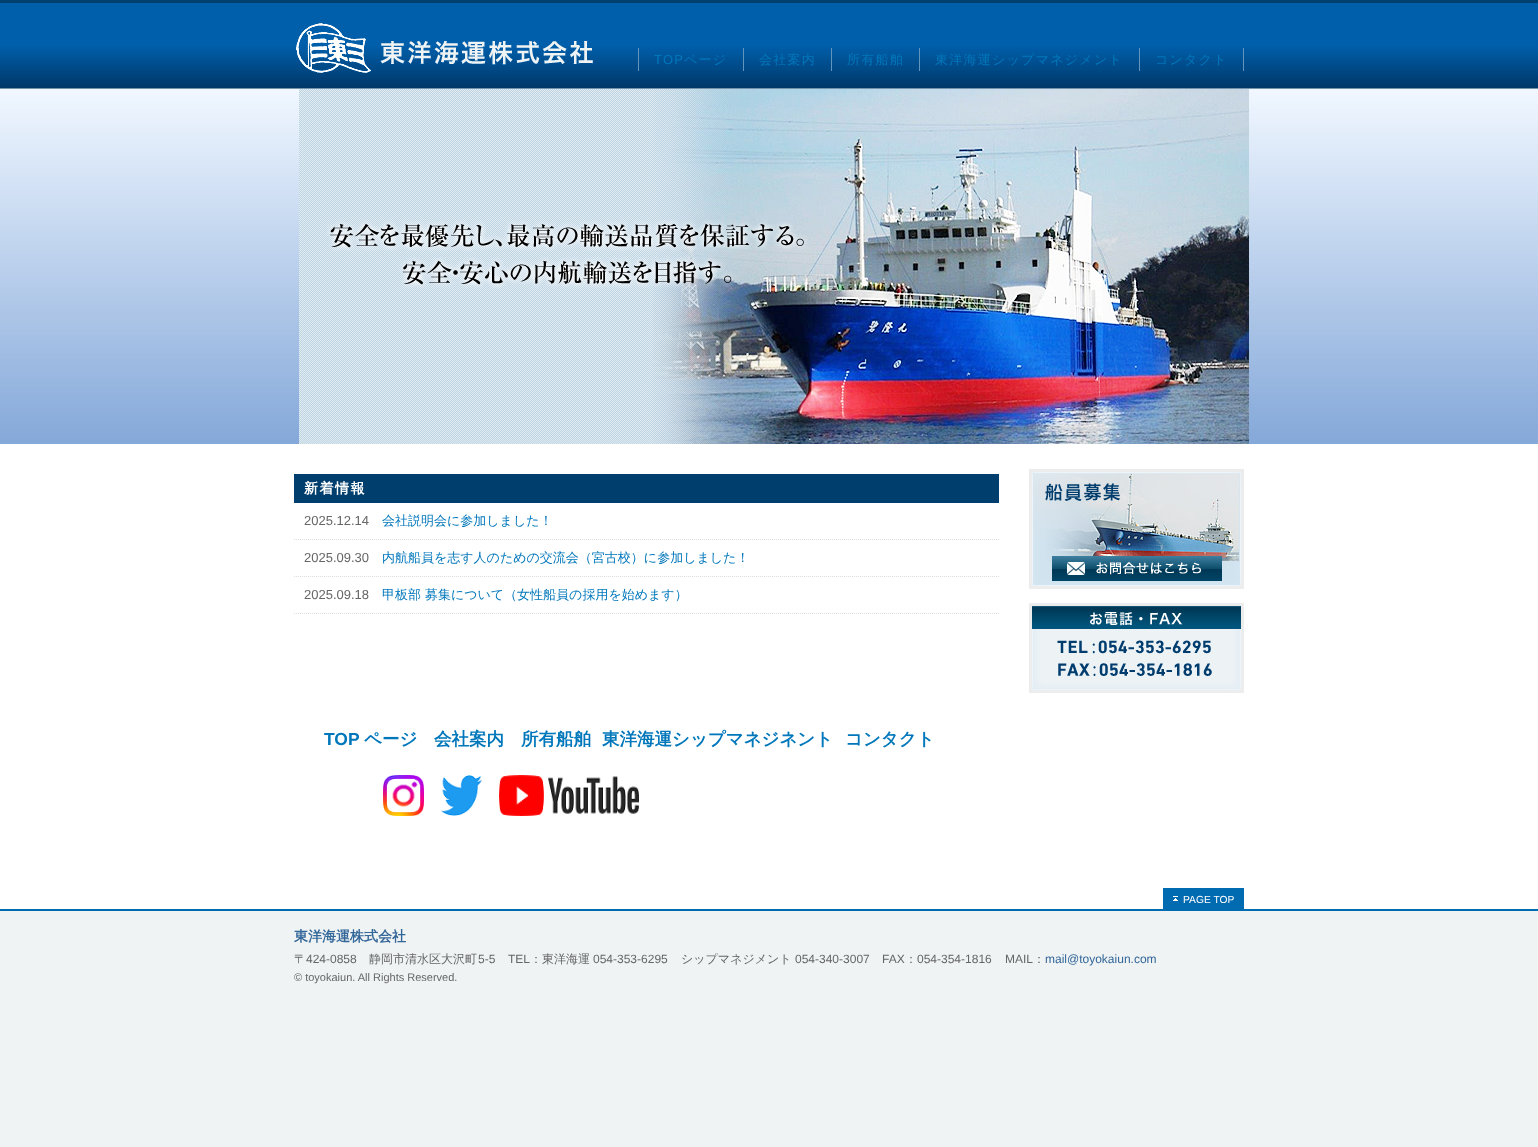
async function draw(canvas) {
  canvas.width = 1538;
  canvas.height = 1147;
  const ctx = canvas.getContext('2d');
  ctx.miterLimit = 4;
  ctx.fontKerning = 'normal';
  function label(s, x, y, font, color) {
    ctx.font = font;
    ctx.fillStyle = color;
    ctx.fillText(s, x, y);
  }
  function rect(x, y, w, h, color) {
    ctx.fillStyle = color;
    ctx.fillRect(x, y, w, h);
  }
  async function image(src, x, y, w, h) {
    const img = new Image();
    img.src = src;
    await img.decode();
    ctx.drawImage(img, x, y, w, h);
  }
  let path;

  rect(0, 0, 1538, 1147, '#eff3f3');
  rect(0, 444, 1538, 465, '#fff');
  await image('assets/img1.png', 0, 3, 1538, 86);
  rect(0, 0, 1538, 3, '#00406f');
  await image('assets/img2.png', 296, 23, 297, 50);
  rect(638, 48, 1, 23, '#6095be');
  rect(743, 48, 1, 23, '#6095be');
  ctx.letterSpacing = '1.25px';
  label('TOP', 654, 64, '13px Liberation Sans', '#07b');
  label('ページ', 684, 64, '500 13px WenQuanYi Zen Hei', '#07b');
  rect(831, 48, 1, 23, '#6095be');
  label('会社案内', 759, 64, '500 13px WenQuanYi Zen Hei', '#07b');
  rect(919, 48, 1, 23, '#6095be');
  label('所有船舶', 847, 64, '500 13px WenQuanYi Zen Hei', '#07b');
  rect(1139, 48, 1, 23, '#6095be');
  label('東洋海運シップマネジメント', 935, 64, '500 13px WenQuanYi Zen Hei', '#07b');
  rect(1243, 48, 1, 23, '#6095be');
  label('コンタクト', 1155, 64, '500 13px WenQuanYi Zen Hei', '#07b');
  await image('assets/img3.png', 0, 89, 1538, 355);
  await image('assets/img4.png', 299, 89, 950, 355);
  rect(294, 474, 705, 29, '#003e6e');
  ctx.letterSpacing = '1.5px';
  label('新着情報', 304, 493, 'bold 14px WenQuanYi Zen Hei', '#fff');
  path = new Path2D('M294 539.5H999');
  ctx.strokeStyle = '#ddd';
  ctx.setLineDash([1, 1]);
  ctx.stroke(path);
  ctx.letterSpacing = '0px';
  label('2025.12.14', 304, 525, '13px Liberation Sans', '#666');
  label('会社説明会に参加しました！', 382, 525, '500 13px WenQuanYi Zen Hei', '#07b');
  path = new Path2D('M294 576.5H999');
  ctx.stroke(path);
  label('2025.09.30', 304, 562, '13px Liberation Sans', '#666');
  label('内航船員を志す人のための交流会（宮古校）に参加しました！', 382, 562, '500 13px WenQuanYi Zen Hei', '#07b');
  path = new Path2D('M294 613.5H999');
  ctx.stroke(path);
  label('2025.09.18', 304, 599, '13px Liberation Sans', '#666');
  label('甲板部 募集について（女性船員の採用を始めます）', 382, 599, '500 13px WenQuanYi Zen Hei', '#07b');
  label('TOP', 324, 745, 'bold 17.5px Liberation Sans', '#07b');
  label('ページ', 364, 745, 'bold 17.5px WenQuanYi Zen Hei', '#07b');
  label('会社案内', 434, 745, 'bold 17.5px WenQuanYi Zen Hei', '#07b');
  label('所有船舶', 521, 745, 'bold 17.5px WenQuanYi Zen Hei', '#07b');
  label('東洋海運シップマネジネント', 602, 745, 'bold 17.5px WenQuanYi Zen Hei', '#07b');
  label('コンタクト', 845, 745, 'bold 17.5px WenQuanYi Zen Hei', '#07b');
  await image('assets/img5.png', 383, 775, 41, 41);
  await image('assets/img6.png', 441, 775, 41, 41);
  await image('assets/img7.png', 499, 775, 140, 41);
  await image('assets/img8.png', 1029, 469, 215, 120);
  await image('assets/img9.png', 1029, 603, 215, 90);
  rect(1163, 888, 81, 21, '#006bb1');
  await image('assets/img10.png', 1173, 896, 5, 5);
  label('PAGE TOP', 1183, 903, '10.25px Liberation Sans', '#fff');
  rect(0, 909, 1538, 2, '#006bb1');
  label('東洋海運株式会社', 294, 941, 'bold 14px WenQuanYi Zen Hei', '#369');
  label('〒', 294, 963, '500 12px WenQuanYi Zen Hei', '#666');
  label('424-0858', 306, 963, '12px Liberation Sans', '#666');
  label('静岡市清水区大沢町', 369, 963, '500 12px WenQuanYi Zen Hei', '#666');
  label('5-5', 478, 963, '12px Liberation Sans', '#666');
  label('TEL', 508, 963, '12px Liberation Sans', '#666');
  label('：東洋海運', 530, 963, '500 12px WenQuanYi Zen Hei', '#666');
  label('054-353-6295', 593, 963, '12px Liberation Sans', '#666');
  label('シップマネジメント', 681, 963, '500 12px WenQuanYi Zen Hei', '#666');
  label('054-340-3007', 795, 963, '12px Liberation Sans', '#666');
  label('FAX', 882, 963, '12px Liberation Sans', '#666');
  label('：', 905, 963, '500 12px WenQuanYi Zen Hei', '#666');
  label('054-354-1816', 917, 963, '12px Liberation Sans', '#666');
  label('MAIL', 1005, 963, '12px Liberation Sans', '#666');
  label('：', 1033, 963, '500 12px WenQuanYi Zen Hei', '#666');
  label('mail@toyokaiun.com', 1045, 963, '12px Liberation Sans', '#369');
  label('© toyokaiun. All Rights Reserved.', 294, 981, '11px Liberation Sans', '#666');
}

draw(document.querySelector('canvas'));
